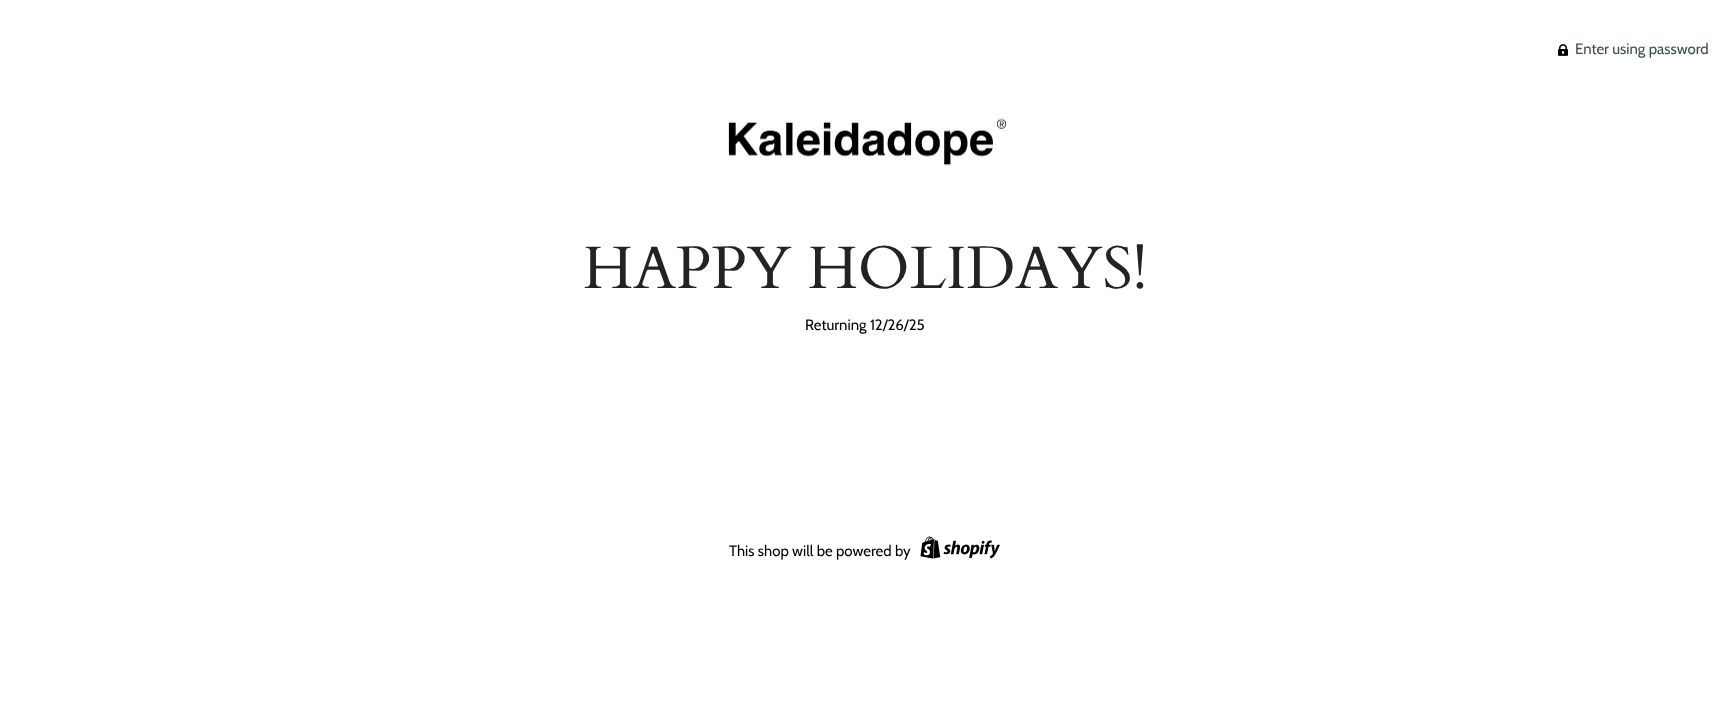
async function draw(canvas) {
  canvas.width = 1729;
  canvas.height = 710;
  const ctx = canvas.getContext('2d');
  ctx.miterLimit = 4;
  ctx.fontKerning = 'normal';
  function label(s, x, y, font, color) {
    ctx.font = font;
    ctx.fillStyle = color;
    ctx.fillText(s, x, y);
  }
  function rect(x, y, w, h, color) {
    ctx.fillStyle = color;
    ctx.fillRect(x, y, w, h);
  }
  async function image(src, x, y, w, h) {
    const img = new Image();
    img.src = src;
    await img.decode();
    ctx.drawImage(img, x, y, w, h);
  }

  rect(0, 0, 1729, 710, '#fff');
  await image('assets/img1.png', 1558, 44, 10, 12);
  label('Enter using password', 1575, 54, '15px Cabin', '#3d4c4f');
  await image('assets/img2.png', 728, 117, 279, 49);
  label('HAPPY HOLIDAYS!', 583, 288, '60px Cardo', '#232323');
  label('Returning 12/26/25', 805, 330, '15px Cabin', '#000');
  label('This shop will be powered by', 729, 556, '15px Cabin', '#000');
  await image('assets/img3.png', 920, 536, 80, 23);
}

draw(document.querySelector('canvas'));
